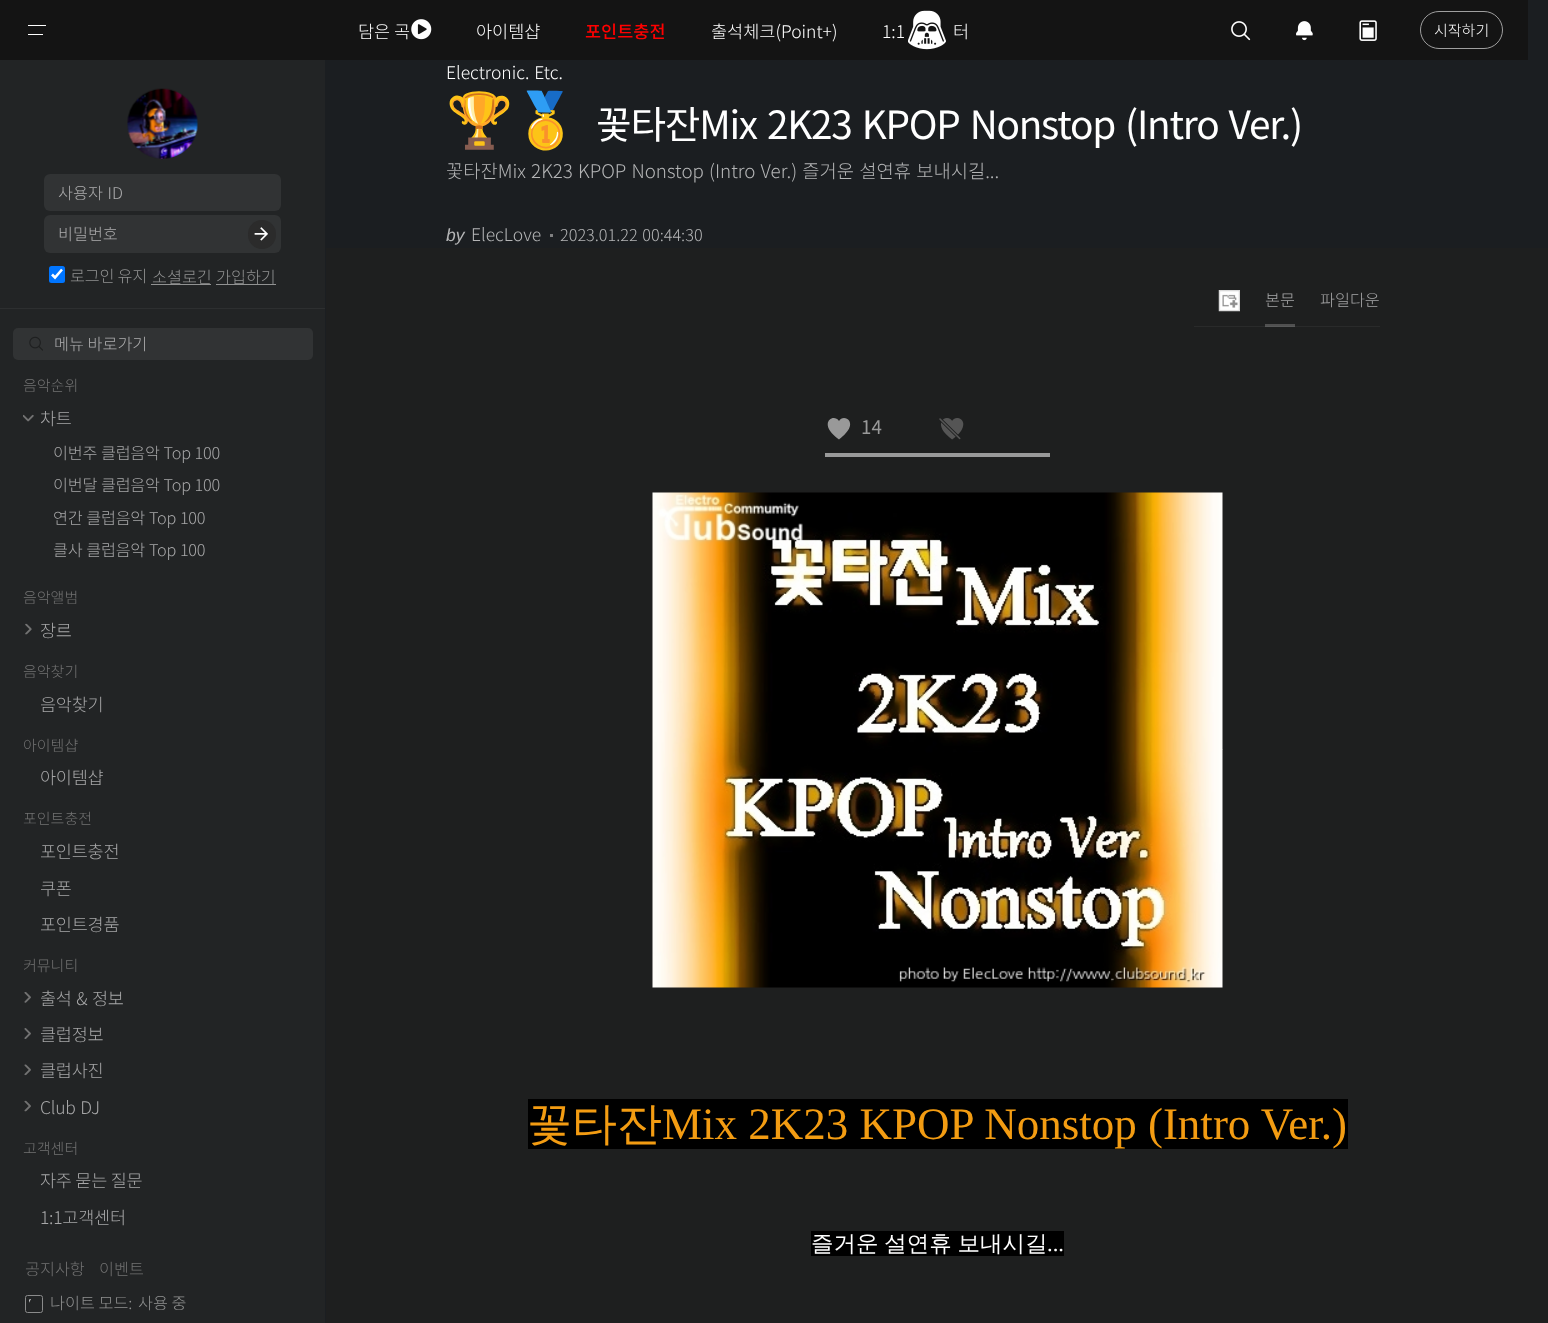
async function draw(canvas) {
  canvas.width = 1548;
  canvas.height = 1323;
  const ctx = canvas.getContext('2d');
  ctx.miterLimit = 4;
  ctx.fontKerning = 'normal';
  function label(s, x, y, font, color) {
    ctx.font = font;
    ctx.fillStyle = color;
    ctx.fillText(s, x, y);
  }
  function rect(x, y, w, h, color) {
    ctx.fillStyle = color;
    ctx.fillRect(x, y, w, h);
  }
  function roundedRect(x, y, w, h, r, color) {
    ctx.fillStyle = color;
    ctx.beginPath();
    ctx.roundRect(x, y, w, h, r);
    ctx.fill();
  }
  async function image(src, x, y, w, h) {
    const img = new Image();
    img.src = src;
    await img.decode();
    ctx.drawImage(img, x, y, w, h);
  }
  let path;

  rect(0, 0, 1548, 1323, '#1b1e21');
  rect(0, 0, 1528, 60, '#141414');
  rect(28, 25, 18, 1, '#fff');
  rect(28, 34, 15, 1, '#fff');
  await image('assets/img1.png', 908, 10, 38, 40);
  label('담은 곡', 358, 38, '300 17.5px Noto Sans KR', '#fff');
  await image('assets/img2.png', 411, 19, 21, 21);
  label('아이템샵', 476, 38, '300 17.5px Noto Sans KR', '#fff');
  label('포인트충전', 585, 38, '500 17.5px Noto Sans KR', '#f00');
  label('출석체크(Point+)', 711, 38, '300 17.5px Noto Sans KR', '#fff');
  label('1:1', 882, 38, '300 17.5px Noto Sans KR', '#fff');
  label('터', 953, 38, '300 17.5px Noto Sans KR', '#fff');
  await image('assets/img3.png', 1231, 21, 20, 20);
  await image('assets/img4.png', 1296, 21, 17, 20);
  await image('assets/img5.png', 1359, 20, 18, 21);
  ctx.beginPath();
  ctx.roundRect(1420.5, 11.5, 82, 37, 18.5);
  ctx.strokeStyle = '#9f9f9f';
  ctx.stroke();
  label('시작하기', 1434, 36, '300 15px Noto Sans KR', '#fff');
  rect(0, 60, 325, 1263, '#222425');
  rect(0, 308, 325, 1, '#2d2f30');
  await image('assets/img6.png', 127, 88, 71, 71);
  roundedRect(44, 174, 237, 37, 6, '#313334');
  ctx.wordSpacing = '1px';
  label('사용자 ID', 58, 199, '300 16.25px Noto Sans KR', '#adadae');
  roundedRect(44, 215, 237, 38, 6, '#313334');
  ctx.wordSpacing = '0px';
  label('비밀번호', 58, 240, '300 16.25px Noto Sans KR', '#adadae');
  roundedRect(248, 220, 28, 29, 14, '#2b2b2b');
  await image('assets/img7.png', 254, 227, 14, 14);
  roundedRect(49, 266, 16, 17, 2.5, '#0075ff');
  path = new Path2D('M52 274.5L55 277.5L62 269.5');
  ctx.strokeStyle = '#fff';
  ctx.lineWidth = 2.6;
  ctx.stroke(path);
  ctx.letterSpacing = '-0.25px';
  label('로그인 유지', 70, 282, '300 16.25px Noto Sans KR', '#919292');
  ctx.letterSpacing = '0px';
  label('소셜로긴', 152, 283, '300 16.25px Noto Sans KR', '#919292');
  rect(151, 284, 60, 1, '#919292');
  rect(216, 284, 60, 1, '#919292');
  label('가입하기', 216, 283, '300 16.25px Noto Sans KR', '#919292');
  roundedRect(13, 328, 300, 32, 5, '#313334');
  await image('assets/img8.png', 29, 336, 14, 15);
  label('메뉴 바로가기', 54, 350, '300 16.25px Noto Sans KR', '#adadae');
  label('음악순위', 23, 391, '300 15px Noto Sans KR', '#727272');
  await image('assets/img9.png', 23, 414, 11, 8);
  ctx.letterSpacing = '-0.25px';
  label('차트', 40, 425, '300 17.5px Noto Sans KR', '#a7a7a8');
  ctx.wordSpacing = '0.5px';
  label('이번주 클럽음악 Top 100', 53, 459, '300 16.25px Noto Sans KR', '#a7a7a8');
  label('이번달 클럽음악 Top 100', 53, 491, '300 16.25px Noto Sans KR', '#a7a7a8');
  label('연간 클럽음악 Top 100', 53, 524, '300 16.25px Noto Sans KR', '#a7a7a8');
  label('클사 클럽음악 Top 100', 53, 556, '300 16.25px Noto Sans KR', '#a7a7a8');
  ctx.letterSpacing = '0px';
  ctx.wordSpacing = '0px';
  label('음악앨범', 23, 603, '300 15px Noto Sans KR', '#727272');
  await image('assets/img10.png', 25, 623, 7, 12);
  ctx.letterSpacing = '-0.25px';
  label('장르', 40, 637, '300 17.5px Noto Sans KR', '#a7a7a8');
  ctx.letterSpacing = '0px';
  label('음악찾기', 23, 677, '300 15px Noto Sans KR', '#727272');
  ctx.letterSpacing = '-0.25px';
  label('음악찾기', 40, 711, '300 17.5px Noto Sans KR', '#a7a7a8');
  ctx.letterSpacing = '0px';
  label('아이템샵', 23, 751, '300 15px Noto Sans KR', '#727272');
  ctx.letterSpacing = '-0.25px';
  label('아이템샵', 40, 784, '300 17.5px Noto Sans KR', '#a7a7a8');
  ctx.letterSpacing = '0px';
  label('포인트충전', 23, 824, '300 15px Noto Sans KR', '#727272');
  ctx.letterSpacing = '-0.25px';
  label('포인트충전', 40, 858, '300 17.5px Noto Sans KR', '#a7a7a8');
  label('쿠폰', 40, 895, '300 17.5px Noto Sans KR', '#a7a7a8');
  label('포인트경품', 40, 931, '300 17.5px Noto Sans KR', '#a7a7a8');
  ctx.letterSpacing = '0px';
  label('커뮤니티', 23, 971, '300 15px Noto Sans KR', '#727272');
  await image('assets/img11.png', 24, 992, 7, 11);
  ctx.letterSpacing = '-0.25px';
  ctx.wordSpacing = '1px';
  label('출석 & 정보', 40, 1005, '300 17.5px Noto Sans KR', '#a7a7a8');
  await image('assets/img12.png', 24, 1028, 7, 11);
  ctx.wordSpacing = '0px';
  label('클럽정보', 40, 1041, '300 17.5px Noto Sans KR', '#a7a7a8');
  await image('assets/img13.png', 24, 1064, 7, 12);
  label('클럽사진', 40, 1077, '300 17.5px Noto Sans KR', '#a7a7a8');
  await image('assets/img14.png', 24, 1100, 7, 12);
  ctx.wordSpacing = '1px';
  label('Club DJ', 40, 1114, '300 17.5px Noto Sans KR', '#a7a7a8');
  ctx.letterSpacing = '0px';
  ctx.wordSpacing = '0px';
  label('고객센터', 23, 1154, '300 15px Noto Sans KR', '#727272');
  ctx.letterSpacing = '-0.25px';
  label('자주 묻는 질문', 40, 1187, '300 17.5px Noto Sans KR', '#a7a7a8');
  label('1:1고객센터', 40, 1224, '300 17.5px Noto Sans KR', '#a7a7a8');
  ctx.letterSpacing = '0px';
  label('공지사항', 25, 1275, '300 16.25px Noto Sans KR', '#727272');
  label('이벤트', 99, 1275, '300 16.25px Noto Sans KR', '#727272');
  ctx.beginPath();
  ctx.roundRect(25.5, 1295.5, 17, 17, 2);
  ctx.strokeStyle = '#8a8b8b';
  ctx.lineWidth = 1;
  ctx.stroke();
  ctx.save();
  ctx.beginPath();
  ctx.rect(29, 1299, 10, 10);
  ctx.clip();
  path = new Path2D('M24.5 1298.5L28.5 1302.5L33 1294');
  ctx.strokeStyle = '#bdbdbe';
  ctx.lineWidth = 1.2;
  ctx.stroke(path);
  ctx.restore();
  label('나이트 모드:', 50, 1309, '300 16.25px Noto Sans KR', '#919292');
  label('사용 중', 138, 1309, '300 16.25px Noto Sans KR', '#919292');
  ctx.wordSpacing = '1px';
  label('Electronic. Etc.', 446, 79, '300 17.5px Noto Sans KR', '#fff');
  ctx.letterSpacing = '-1.25px';
  ctx.wordSpacing = '0px';
  label('🏆🥇', 446, 139, '54px Noto Color Emoji', '#fff');
  ctx.wordSpacing = '2.75px';
  label('꽃타잔Mix 2K23 KPOP Nonstop (Intro Ver.)', 596, 139, '38.75px Noto Sans KR', '#fff');
  ctx.letterSpacing = '0px';
  ctx.wordSpacing = '1px';
  label('꽃타잔Mix 2K23 KPOP Nonstop (Intro Ver.) 즐거운 설연휴 보내시길...', 446, 178, '300 18.75px Noto Sans KR', '#b4b5b6');
  ctx.wordSpacing = '0px';
  label('by', 446, 241, 'italic 17.5px Liberation Sans', '#b4b5b6');
  label('ElecLove', 471, 241, '300 17.5px Noto Sans KR', '#b4b5b6');
  rect(550, 234, 3, 3, '#7f8081');
  ctx.wordSpacing = '1px';
  label('2023.01.22 00:44:30', 560, 241, '300 16.25px Noto Sans KR', '#b4b5b6');
  rect(326, 248, 1222, 1075, '#1e1f1f');
  rect(1265, 324, 30, 2, '#505050');
  rect(1194, 326, 186, 1, '#292a2a');
  rect(1265, 326, 30, 1, '#585959');
  await image('assets/img15.png', 1218, 290, 22, 22);
  ctx.wordSpacing = '0px';
  label('본문', 1265, 306, '300 16.25px Noto Sans KR', '#a7a7a8');
  label('파일다운', 1320, 306, '300 16.25px Noto Sans KR', '#a7a7a8');
  ctx.fillStyle = '#999';
  path = new Path2D('M844 418C842 418 840 419 839 421C833 412.5 817 424 839 439.5C843.5 436 853.5 427.5 849 420.5C848 419 846 418 844 418Z');
  ctx.fill(path);
  label('14', 861, 434, '18.75px Noto Sans KR', '#999');
  rect(825, 453, 225, 4, '#999');
  await image('assets/img16.png', 939, 418, 25, 22);
  rect(1222, 749, 1, 1, '#444');
  await image('assets/img17.png', 652, 492, 571, 496);
  rect(528, 1099, 820, 50, '#000');
  label('꽃타잔', 527, 1139, '500 45px WenQuanYi Zen Hei', '#f39c12');
  label('Mix 2K23 KPOP Nonstop (Intro Ver.)', 662, 1139, '45px Liberation Serif', '#f39c12');
  rect(811, 1231, 253, 25, '#000');
  ctx.wordSpacing = '-1px';
  label('즐거운 설연휴 보내시길', 811, 1251, '500 22.5px WenQuanYi Zen Hei', '#fff');
  ctx.wordSpacing = '0px';
  label('...', 1047, 1251, '22.5px Liberation Serif', '#fff');
}

draw(document.querySelector('canvas'));
